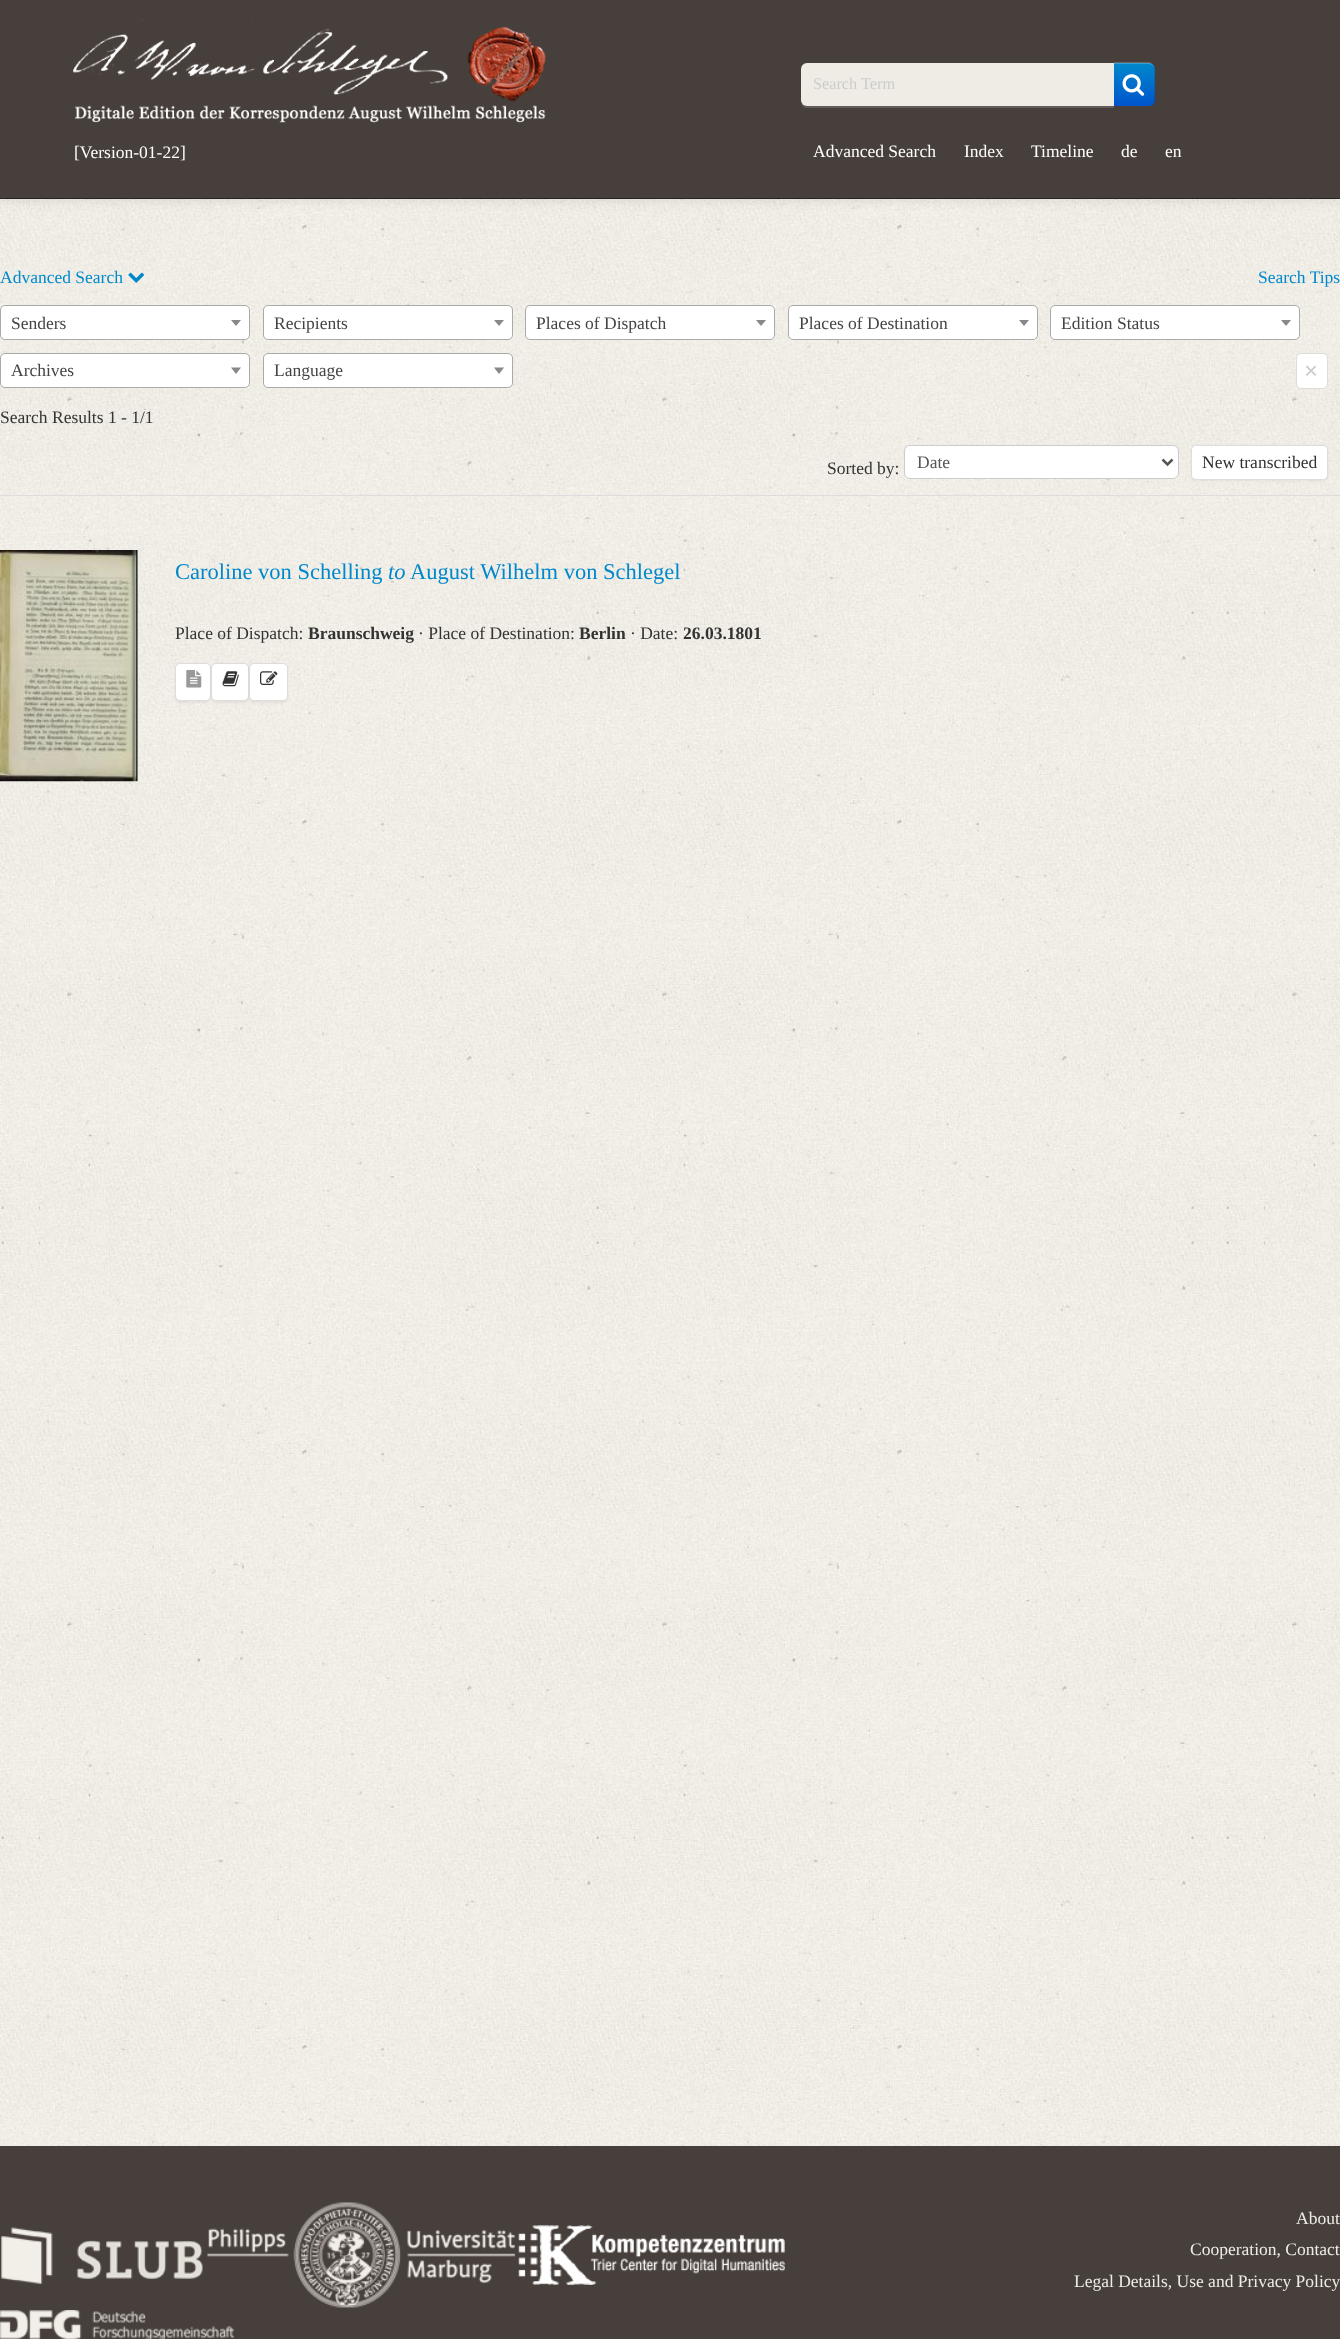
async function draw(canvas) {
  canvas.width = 1340;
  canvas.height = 2339;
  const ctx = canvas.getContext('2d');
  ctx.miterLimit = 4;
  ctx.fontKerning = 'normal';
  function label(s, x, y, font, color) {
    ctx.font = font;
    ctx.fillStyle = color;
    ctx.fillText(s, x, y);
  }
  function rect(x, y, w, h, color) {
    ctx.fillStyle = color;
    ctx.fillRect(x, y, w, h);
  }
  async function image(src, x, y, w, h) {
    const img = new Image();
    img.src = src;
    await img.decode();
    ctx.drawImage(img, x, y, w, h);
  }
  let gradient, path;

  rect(0, 0, 1340, 2339, '#fff');
  await image('assets/img1.png', 0, 199, 1340, 1947);
  ctx.fillStyle = '#0000001a';
  ctx.filter = 'blur(6px)';
  ctx.beginPath();
  ctx.rect(0, 1, 1340, 199);
  ctx.fill();
  ctx.filter = 'none';
  rect(0, 0, 1340, 198, '#473f3b');
  rect(0, 198, 1340, 1, '#252525');
  await image('assets/img2.png', 73, 19, 473, 104);
  label('[Version-01-22]', 74, 158, '17.5px Liberation Serif', '#fff');
  gradient = ctx.createLinearGradient(1134, 63, 1134, 106);
  gradient.addColorStop(0, '#08c');
  gradient.addColorStop(1, '#05c');
  ctx.fillStyle = gradient;
  ctx.beginPath();
  ctx.roundRect(1113, 63, 42, 43, [0, 6, 6, 0]);
  ctx.fill();
  ctx.fillStyle = '#635c58';
  path = new Path2D('M801 68V91C801 96 799 108 807 108H1114V64V106H808C799 106 801 95 801 90Z');
  ctx.fill(path);
  ctx.fillStyle = '#efece5';
  ctx.beginPath();
  ctx.roundRect(801, 63, 313, 43, [6, 0, 0, 6]);
  ctx.fill();
  label('Search Term', 813, 89, '16.25px Liberation Serif', '#ccc');
  ctx.fillStyle = '#ffffff33';
  path = new Path2D('M1114 64H1149C1151 64 1153 66 1154 68C1153 65 1151 62 1149 62H1114V106Z');
  ctx.fill(path);
  rect(1154, 66, 1, 38, '#0000001a');
  await image('assets/img3.png', 1122, 74, 23, 22);
  label('Advanced Search', 813, 157, '17.5px Liberation Serif', '#fff');
  label('Index', 964, 157, '17.5px Liberation Serif', '#fff');
  label('Timeline', 1031, 157, '17.5px Liberation Serif', '#fff');
  label('de', 1121, 157, '17.5px Liberation Serif', '#fff');
  label('en', 1165, 157, '17.5px Liberation Serif', '#fff');
  label('Advanced Search', 0, 283, '17.5px Liberation Serif', '#08c');
  await image('assets/img4.png', 128, 272, 17, 11);
  label('Search Tips', 1258, 283, '17.5px Liberation Serif', '#08c');
  ctx.fillStyle = '#fff';
  ctx.beginPath();
  ctx.roundRect(0.5, 305.5, 249, 34, 4.5);
  ctx.fill();
  ctx.strokeStyle = '#aaa';
  ctx.stroke();
  label('Senders', 11, 329, '17.5px Liberation Serif', '#444');
  ctx.fillStyle = '#888';
  path = new Path2D('M231 320H241L236 326Z');
  ctx.fill(path);
  ctx.fillStyle = '#fff';
  ctx.beginPath();
  ctx.roundRect(263.5, 305.5, 249, 34, 4.5);
  ctx.fill();
  ctx.stroke();
  label('Recipients', 274, 329, '17.5px Liberation Serif', '#444');
  ctx.fillStyle = '#888';
  path = new Path2D('M494 320H504L499 326Z');
  ctx.fill(path);
  ctx.fillStyle = '#fff';
  ctx.beginPath();
  ctx.roundRect(525.5, 305.5, 249, 34, 4.5);
  ctx.fill();
  ctx.stroke();
  label('Places of Dispatch', 536, 329, '17.5px Liberation Serif', '#444');
  ctx.fillStyle = '#888';
  path = new Path2D('M756 320H766L761 326Z');
  ctx.fill(path);
  ctx.fillStyle = '#fff';
  ctx.beginPath();
  ctx.roundRect(788.5, 305.5, 249, 34, 4.5);
  ctx.fill();
  ctx.stroke();
  label('Places of Destination', 799, 329, '17.5px Liberation Serif', '#444');
  ctx.fillStyle = '#888';
  path = new Path2D('M1019 320H1029L1024 326Z');
  ctx.fill(path);
  ctx.fillStyle = '#fff';
  ctx.beginPath();
  ctx.roundRect(1050.5, 305.5, 249, 34, 4.5);
  ctx.fill();
  ctx.stroke();
  label('Edition Status', 1061, 329, '17.5px Liberation Serif', '#444');
  ctx.fillStyle = '#888';
  path = new Path2D('M1281 320H1291L1286 326Z');
  ctx.fill(path);
  ctx.fillStyle = '#fff';
  ctx.beginPath();
  ctx.roundRect(0.5, 353.5, 249, 34, 4.5);
  ctx.fill();
  ctx.stroke();
  label('Archives', 11, 376, '17.5px Liberation Serif', '#444');
  ctx.fillStyle = '#888';
  path = new Path2D('M231 367.5H241L236 374Z');
  ctx.fill(path);
  ctx.fillStyle = '#fff';
  ctx.beginPath();
  ctx.roundRect(263.5, 353.5, 249, 34, 4.5);
  ctx.fill();
  ctx.stroke();
  label('Language', 274, 376, '17.5px Liberation Serif', '#444');
  ctx.fillStyle = '#888';
  path = new Path2D('M494 367.5H504L499 374Z');
  ctx.fill(path);
  ctx.fillStyle = '#fff';
  ctx.beginPath();
  ctx.roundRect(1296.5, 353.5, 31, 35, 4.5);
  ctx.fill();
  ctx.strokeStyle = '#ddd';
  ctx.stroke();
  label('×', 1304, 379, 'bold 25px Liberation Serif', '#ccc');
  rect(0, 495, 1340, 1, '#ddd');
  label('Search Results 1 - 1/1', 0, 423, '17.5px Liberation Serif', '#333');
  label('Sorted by:', 827, 474, '17.5px Liberation Serif', '#333');
  ctx.fillStyle = '#fff';
  ctx.beginPath();
  ctx.roundRect(904.5, 445.5, 274, 33, 5.5);
  ctx.fill();
  ctx.strokeStyle = '#ccc';
  ctx.stroke();
  path = new Path2D('M1162.5 459.5L1167.5 464.5L1172.5 459.5');
  ctx.strokeStyle = '#555';
  ctx.lineWidth = 2.5;
  ctx.stroke(path);
  label('Date', 917, 468, '17.5px Liberation Serif', '#555');
  ctx.fillStyle = '#0000000d';
  ctx.filter = 'blur(1px)';
  ctx.beginPath();
  ctx.roundRect(1191, 446, 137, 35, 5);
  ctx.fill();
  ctx.filter = 'none';
  ctx.fillStyle = '#fff';
  ctx.beginPath();
  ctx.roundRect(1191.5, 445.5, 136, 34, 4.5);
  ctx.fill();
  ctx.strokeStyle = '#ddd';
  ctx.lineWidth = 1;
  ctx.stroke();
  label('New transcribed', 1202, 468, '17.5px Liberation Serif', '#333');
  await image('assets/img5.png', 0, 550, 138, 232);
  label('Caroline von Schelling', 175, 579, '22.5px Liberation Serif', '#08c');
  label('to', 388, 579, 'italic 22.5px Liberation Serif', '#08c');
  label('August Wilhelm von Schlegel', 410, 579, '22.5px Liberation Serif', '#08c');
  label('Place of Dispatch:', 175, 639, '17.5px Liberation Serif', '#333');
  label('Braunschweig', 308, 639, 'bold 17.5px Liberation Serif', '#333');
  label('· Place of Destination:', 418, 639, '17.5px Liberation Serif', '#333');
  label('Berlin', 579, 639, 'bold 17.5px Liberation Serif', '#333');
  label('· Date:', 630, 639, '17.5px Liberation Serif', '#333');
  label('26.03.1801', 683, 639, 'bold 17.5px Liberation Serif', '#333');
  ctx.fillStyle = '#0000000d';
  ctx.filter = 'blur(1px)';
  ctx.beginPath();
  ctx.roundRect(175, 664, 36, 39, 5);
  ctx.fill();
  ctx.filter = 'none';
  ctx.fillStyle = '#fff';
  ctx.beginPath();
  ctx.roundRect(175.5, 663.5, 35, 37, 4.5);
  ctx.fill();
  ctx.stroke();
  await image('assets/img6.png', 186, 670, 16, 18);
  ctx.fillStyle = '#0000000d';
  ctx.filter = 'blur(1px)';
  ctx.beginPath();
  ctx.roundRect(211, 664, 38, 39, 5);
  ctx.fill();
  ctx.filter = 'none';
  ctx.fillStyle = '#fff';
  ctx.beginPath();
  ctx.roundRect(211.5, 663.5, 37, 37, 4.5);
  ctx.fill();
  ctx.stroke();
  await image('assets/img7.png', 222, 671, 17, 16);
  ctx.fillStyle = '#0000000d';
  ctx.filter = 'blur(1px)';
  ctx.beginPath();
  ctx.roundRect(249, 664, 39, 39, 5);
  ctx.fill();
  ctx.filter = 'none';
  ctx.fillStyle = '#fff';
  ctx.beginPath();
  ctx.roundRect(249.5, 663.5, 38, 37, 4.5);
  ctx.fill();
  ctx.stroke();
  await image('assets/img8.png', 260, 671, 18, 14);
  rect(0, 2146, 1340, 193, '#473f3b');
  await image('assets/img9.png', 1, 2227, 202, 57);
  await image('assets/img10.png', 207, 2202, 308, 106);
  await image('assets/img11.png', 518, 2225, 267, 60);
  await image('assets/img12.png', 0, 2310, 234, 29);
  label('About', 1296, 2224, '17.5px Liberation Serif', '#efece5');
  label('Cooperation, Contact', 1190, 2255, '17.5px Liberation Serif', '#efece5');
  label('Legal Details, Use and Privacy Policy', 1074, 2287, '17.5px Liberation Serif', '#efece5');
}

draw(document.querySelector('canvas'));
